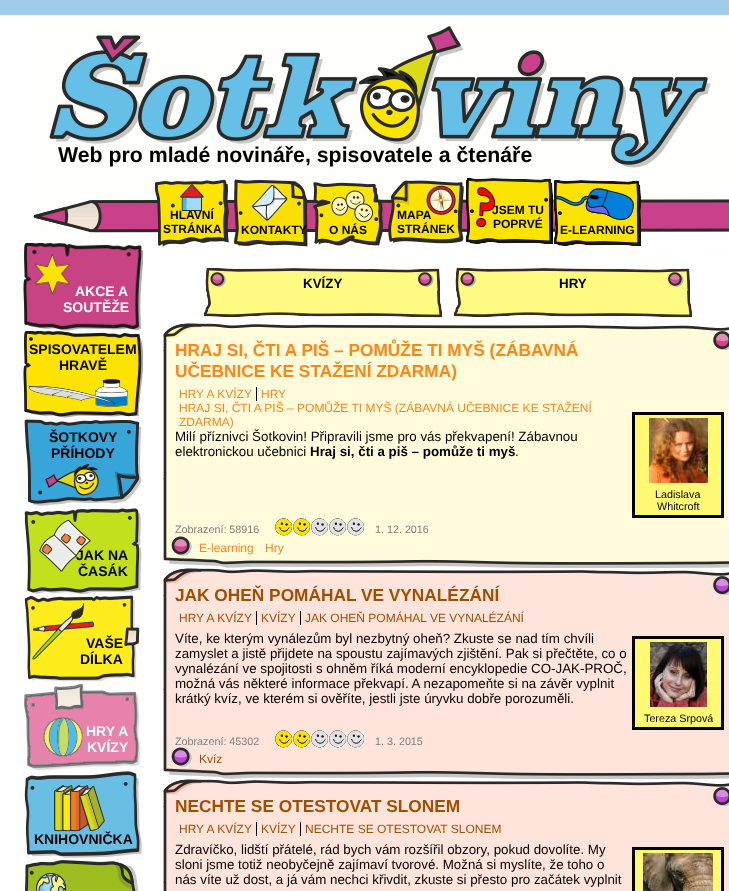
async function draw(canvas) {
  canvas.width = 729;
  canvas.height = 891;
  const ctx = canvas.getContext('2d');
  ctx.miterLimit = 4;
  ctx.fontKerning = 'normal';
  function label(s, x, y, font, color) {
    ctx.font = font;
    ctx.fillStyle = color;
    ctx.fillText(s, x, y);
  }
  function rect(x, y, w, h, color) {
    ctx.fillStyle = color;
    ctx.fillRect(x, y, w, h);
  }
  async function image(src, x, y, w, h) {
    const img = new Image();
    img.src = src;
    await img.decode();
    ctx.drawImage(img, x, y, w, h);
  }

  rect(0, 0, 729, 891, '#9fccea');
  rect(0, 15, 729, 876, '#fff');
  await image('assets/img1.png', 33, 26, 696, 207);
  label('Web pro mladé novináře, spisovatele a čtenáře', 58, 162, 'bold 21.3px Liberation Sans', '#000');
  await image('assets/img2.png', 155, 179, 74, 68);
  label('HLAVNÍ', 170, 219, 'bold 12px Liberation Sans', '#000');
  label('STRÁNKA', 163, 233, 'bold 12px Liberation Sans', '#000');
  await image('assets/img3.png', 234, 179, 74, 68);
  label('KONTAKTY', 241, 234, 'bold 12px Liberation Sans', '#000');
  await image('assets/img4.png', 313, 182, 70, 64);
  label('O NÁS', 329, 234, 'bold 12px Liberation Sans', '#000');
  await image('assets/img5.png', 388, 180, 76, 64);
  label('MAPA', 397, 219, 'bold 12px Liberation Sans', '#000');
  label('STRÁNEK', 397, 233, 'bold 12px Liberation Sans', '#000');
  await image('assets/img6.png', 465, 178, 88, 67);
  label('JSEM TU', 492, 214, 'bold 12px Liberation Sans', '#000');
  label('POPRVÉ', 493, 228, 'bold 12px Liberation Sans', '#000');
  await image('assets/img7.png', 553, 180, 88, 67);
  label('E-LEARNING', 560, 234, 'bold 12px Liberation Sans', '#000');
  await image('assets/img8.png', 23, 243, 120, 88);
  label('AKCE A', 75, 296, 'bold 14px Liberation Sans', '#fff');
  label('SOUTĚŽE', 63, 312, 'bold 14px Liberation Sans', '#fff');
  await image('assets/img9.png', 23, 331, 120, 87);
  label('SPISOVATELEM', 29, 354, 'bold 14px Liberation Sans', '#000');
  label('HRAVĚ', 59, 370, 'bold 14px Liberation Sans', '#000');
  await image('assets/img10.png', 24, 419, 118, 87);
  label('ŠOTKOVY', 49, 442, 'bold 14px Liberation Sans', '#000');
  label('PŘÍHODY', 51, 458, 'bold 14px Liberation Sans', '#000');
  await image('assets/img11.png', 24, 508, 118, 86);
  label('JAK NA', 76, 560, 'bold 14px Liberation Sans', '#000');
  label('ČASÁK', 78, 576, 'bold 14px Liberation Sans', '#000');
  await image('assets/img12.png', 24, 595, 116, 87);
  label('VAŠE', 86, 648, 'bold 14px Liberation Sans', '#000');
  label('DÍLKA', 80, 664, 'bold 14px Liberation Sans', '#000');
  await image('assets/img13.png', 24, 684, 117, 87);
  label('HRY A', 86, 736, 'bold 14px Liberation Sans', '#fff');
  label('KVÍZY', 87, 752, 'bold 14px Liberation Sans', '#fff');
  await image('assets/img14.png', 24, 771, 118, 87);
  label('KNIHOVNIČKA', 34, 844, 'bold 14px Liberation Sans', '#000');
  await image('assets/img15.png', 25, 860, 113, 31);
  await image('assets/img16.png', 204, 268, 238, 50);
  label('KVÍZY', 303, 288, 'bold 13.35px Liberation Sans', '#000');
  await image('assets/img16.png', 454, 268, 238, 50);
  label('HRY', 559, 288, 'bold 13.35px Liberation Sans', '#000');
  await image('assets/img17.png', 163, 323, 566, 28);
  await image('assets/img18.png', 163, 350, 566, 129);
  label('HRAJ SI, ČTI A PIŠ – POMŮŽE TI MYŠ (ZÁBAVNÁ', 175, 356, 'bold 17.3px Liberation Sans', '#fd8617');
  label('UČEBNICE KE STAŽENÍ ZDARMA)', 175, 377, 'bold 17.3px Liberation Sans', '#fd8617');
  label('HRY A KVÍZY', 179, 398, '12px Liberation Sans', '#fd8617');
  rect(256, 387, 1, 14, '#000');
  label('HRY', 261, 398, '12px Liberation Sans', '#fd8617');
  label('HRAJ SI, ČTI A PIŠ – POMŮŽE TI MYŠ (ZÁBAVNÁ UČEBNICE KE STAŽENÍ', 179, 412, '12px Liberation Sans', '#fd8617');
  label('ZDARMA)', 179, 426, '12px Liberation Sans', '#fd8617');
  await image('assets/img22.png', 163, 478, 566, 90);
  ctx.fillStyle = '#fff974';
  ctx.beginPath();
  ctx.rect(633.5, 413.5, 89, 103);
  ctx.fill();
  ctx.strokeStyle = '#000';
  ctx.lineWidth = 3;
  ctx.stroke();
  await image('assets/img19.png', 649, 418, 59, 65);
  label('Ladislava', 655, 498, '10.75px Liberation Sans', '#000');
  label('Whitcroft', 657, 510, '10.75px Liberation Sans', '#000');
  label('Milí příznivci Šotkovin! Připravili jsme pro vás překvapení! Zábavnou', 175, 441, '13.35px Liberation Sans', '#000');
  label('elektronickou učebnici', 175, 456, '13.35px Liberation Sans', '#000');
  label('Hraj si, čti a piš – pomůže ti myš', 310, 456, 'bold 13.35px Liberation Sans', '#000');
  label('.', 515, 456, '13.35px Liberation Sans', '#000');
  label('Zobrazení: 58916', 175, 533, '10.75px Liberation Sans', '#7f7f7f');
  await image('assets/img20.png', 275, 518, 17, 18);
  await image('assets/img20.png', 293, 518, 17, 18);
  await image('assets/img21.png', 311, 518, 17, 18);
  await image('assets/img21.png', 329, 518, 17, 18);
  await image('assets/img21.png', 347, 518, 17, 18);
  label('1. 12. 2016', 375, 533, '10.75px Liberation Sans', '#7f7f7f');
  label('E-learning', 199, 552, '12px Liberation Sans', '#fd8617');
  label('Hry', 265, 552, '12px Liberation Sans', '#fd8617');
  await image('assets/img23.png', 163, 568, 566, 28);
  await image('assets/img24.png', 163, 595, 566, 95);
  label('JAK OHEŇ POMÁHAL VE VYNALÉZÁNÍ', 175, 601, 'bold 17.3px Liberation Sans', '#9f4f00');
  label('HRY A KVÍZY', 179, 622, '12px Liberation Sans', '#9f4f00');
  rect(256, 611, 1, 14, '#000');
  label('KVÍZY', 261, 622, '12px Liberation Sans', '#9f4f00');
  rect(300, 611, 1, 14, '#000');
  label('JAK OHEŇ POMÁHAL VE VYNALÉZÁNÍ', 305, 622, '12px Liberation Sans', '#9f4f00');
  await image('assets/img28.png', 163, 689, 566, 90);
  ctx.fillStyle = '#fff974';
  ctx.beginPath();
  ctx.rect(633.5, 637.5, 89, 91);
  ctx.fill();
  ctx.stroke();
  await image('assets/img25.png', 650, 642, 57, 65);
  label('Tereza Srpová', 644, 722, '10.75px Liberation Sans', '#000');
  label('Víte, ke kterým vynálezům byl nezbytný oheň? Zkuste se nad tím chvíli', 175, 643, '13.35px Liberation Sans', '#000');
  label('zamyslet a jistě přijdete na spoustu zajímavých zjištění. Pak si přečtěte, co o', 175, 658, '13.35px Liberation Sans', '#000');
  label('vynalézání ve spojitosti s ohněm říká moderní encyklopedie CO-JAK-PROČ,', 175, 673, '13.35px Liberation Sans', '#000');
  label('možná vás některé informace překvapí. A nezapomeňte si na závěr vyplnit', 175, 688, '13.35px Liberation Sans', '#000');
  label('krátký kvíz, ve kterém si ověříte, jestli jste úryvku dobře porozuměli.', 175, 703, '13.35px Liberation Sans', '#000');
  label('Zobrazení: 45302', 175, 745, '10.75px Liberation Sans', '#7f7f7f');
  await image('assets/img26.png', 275, 730, 17, 18);
  await image('assets/img26.png', 293, 730, 17, 18);
  await image('assets/img27.png', 311, 730, 17, 18);
  await image('assets/img27.png', 329, 730, 17, 18);
  await image('assets/img27.png', 347, 730, 17, 18);
  label('1. 3. 2015', 375, 745, '10.75px Liberation Sans', '#7f7f7f');
  label('Kvíz', 199, 763, '12px Liberation Sans', '#9f4f00');
  await image('assets/img23.png', 163, 779, 566, 28);
  await image('assets/img29.png', 163, 806, 566, 77);
  label('NECHTE SE OTESTOVAT SLONEM', 175, 812, 'bold 17.3px Liberation Sans', '#9f4f00');
  label('HRY A KVÍZY', 179, 833, '12px Liberation Sans', '#9f4f00');
  rect(256, 822, 1, 14, '#000');
  label('KVÍZY', 261, 833, '12px Liberation Sans', '#9f4f00');
  rect(300, 822, 1, 14, '#000');
  label('NECHTE SE OTESTOVAT SLONEM', 305, 833, '12px Liberation Sans', '#9f4f00');
  await image('assets/img31.png', 163, 882, 566, 9);
  ctx.fillStyle = '#fff974';
  ctx.beginPath();
  ctx.rect(633.5, 848.5, 89, 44);
  ctx.fill();
  ctx.stroke();
  await image('assets/img30.png', 643, 853, 70, 38);
  label('Zdravíčko, lidští přátelé, rád bych vám rozšířil obzory, pokud dovolíte. My', 175, 854, '13.35px Liberation Sans', '#000');
  label('sloni jsme totiž neobyčejně zajímaví tvorové. Možná si myslíte, že toho o', 175, 869, '13.35px Liberation Sans', '#000');
  label('nás víte už dost, a já vám nechci křivdit, zkuste si přesto pro začátek vyplnit', 175, 884, '13.35px Liberation Sans', '#000');
}

draw(document.querySelector('canvas'));
